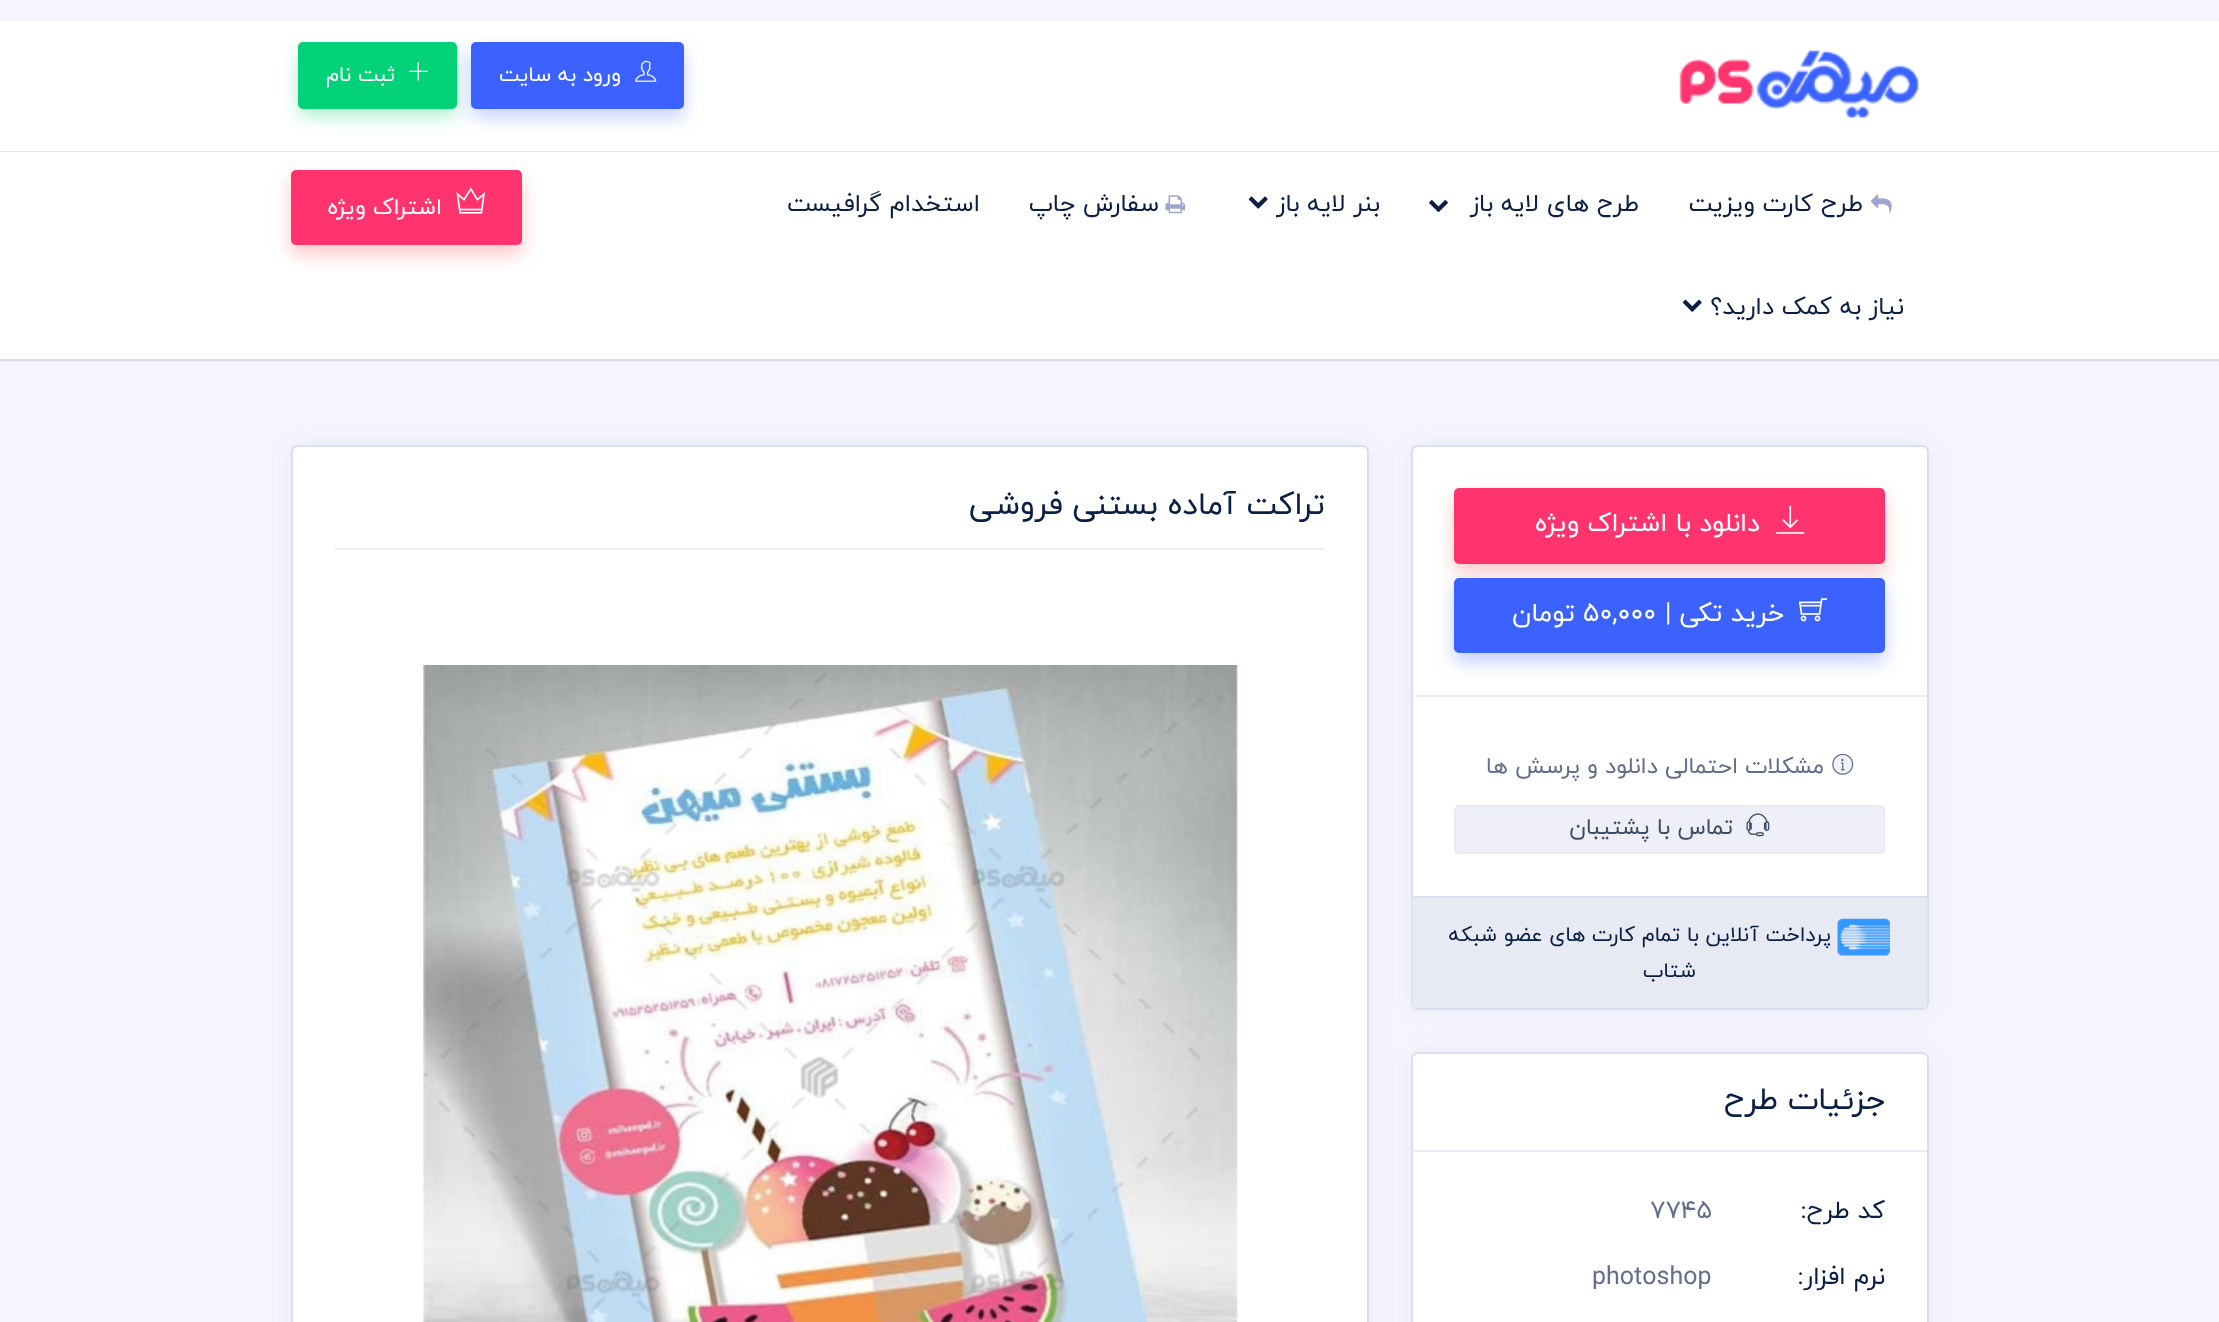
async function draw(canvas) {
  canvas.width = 2219;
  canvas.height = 1322;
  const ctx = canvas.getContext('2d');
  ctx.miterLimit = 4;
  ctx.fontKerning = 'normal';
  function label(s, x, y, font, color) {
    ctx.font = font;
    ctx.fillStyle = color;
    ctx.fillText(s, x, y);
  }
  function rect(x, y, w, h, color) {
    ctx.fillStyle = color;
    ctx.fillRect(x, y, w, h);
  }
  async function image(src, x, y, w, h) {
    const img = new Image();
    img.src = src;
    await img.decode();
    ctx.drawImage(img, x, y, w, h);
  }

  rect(0, 0, 2219, 1322, '#f5f6fd');
  rect(0, 21, 2219, 130, '#fff');
  rect(0, 151, 2219, 1, '#e6e7f5');
  await image('assets/img1.png', 1679, 50, 240, 68);
  ctx.fillStyle = '#3b62fe4d';
  ctx.filter = 'blur(9px)';
  ctx.beginPath();
  ctx.roundRect(471, 51, 213, 66, 5);
  ctx.fill();
  ctx.filter = 'none';
  ctx.fillStyle = '#3b62fe';
  ctx.beginPath();
  ctx.roundRect(472, 43, 211, 65, 4);
  ctx.fill();
  ctx.strokeStyle = '#3b62fe';
  ctx.lineWidth = 2;
  ctx.stroke();
  await image('assets/img2.png', 635, 60, 22, 22);
  ctx.direction = 'rtl';
  label('ورود به سایت', 621, 81, '21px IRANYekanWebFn', '#fff');
  ctx.fillStyle = '#01d2774d';
  ctx.filter = 'blur(9px)';
  ctx.beginPath();
  ctx.roundRect(298, 51, 159, 66, 5);
  ctx.fill();
  ctx.filter = 'none';
  ctx.fillStyle = '#01d277';
  ctx.beginPath();
  ctx.roundRect(299, 43, 157, 65, 4);
  ctx.fill();
  ctx.strokeStyle = '#01d277';
  ctx.stroke();
  await image('assets/img3.png', 409, 62, 19, 19);
  label('ثبت نام', 395, 81, '21px IRANYekanWebFn', '#fff');
  rect(0, 152, 2219, 207, '#fff');
  await image('assets/img4.png', 1870, 194, 22, 20);
  label('طرح کارت ویزیت', 1863, 211, '24.5px IRANYekanWebFn', '#0a1f44');
  label('طرح های لایه باز', 1639, 211, '24.5px IRANYekanWebFn', '#0a1f44');
  await image('assets/img5.png', 1429, 200, 19, 13);
  label('بنر لایه باز', 1380, 211, '24.5px IRANYekanWebFn', '#0a1f44');
  await image('assets/img6.png', 1248, 196, 20, 13);
  await image('assets/img7.png', 1165, 195, 20, 19);
  label('سفارش چاپ', 1159, 211, '24.5px IRANYekanWebFn', '#0a1f44');
  label('استخدام گرافیست', 980, 211, '24.5px IRANYekanWebFn', '#0a1f44');
  label('نیاز به کمک دارید؟', 1904, 314, '24.5px IRANYekanWebFn', '#0a1f44');
  await image('assets/img8.png', 1682, 299, 20, 13);
  ctx.fillStyle = '#f842424d';
  ctx.filter = 'blur(9px)';
  ctx.beginPath();
  ctx.roundRect(291, 179, 231, 75, 5);
  ctx.fill();
  ctx.filter = 'none';
  ctx.fillStyle = '#ff336e';
  ctx.beginPath();
  ctx.roundRect(292, 171, 229, 73, 4);
  ctx.fill();
  ctx.strokeStyle = '#ff336e';
  ctx.stroke();
  await image('assets/img9.png', 456, 187, 29, 27);
  label('اشتراک ویژه', 442, 214, '22.75px IRANYekanWebFn', '#fff');
  rect(0, 359, 2219, 2, '#dbddf1');
  ctx.fillStyle = '#1511940f';
  ctx.filter = 'blur(10.5px)';
  ctx.beginPath();
  ctx.roundRect(291, 445, 1078, 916, 7);
  ctx.fill();
  ctx.filter = 'none';
  ctx.fillStyle = '#fff';
  ctx.beginPath();
  ctx.roundRect(292, 446, 1076, 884, 6);
  ctx.fill();
  ctx.strokeStyle = '#dbddf1';
  ctx.stroke();
  rect(334, 548, 991, 2, '#eee');
  label('تراکت آماده بستنی فروشی', 1325, 514, '31.5px IRANYekanWebFn', '#0a1f44');
  await image('assets/img10.png', 423, 665, 815, 657);
  ctx.fillStyle = '#1511940f';
  ctx.filter = 'blur(10.5px)';
  ctx.beginPath();
  ctx.roundRect(1411, 445, 518, 565, 7);
  ctx.fill();
  ctx.filter = 'none';
  ctx.fillStyle = '#fff';
  ctx.beginPath();
  ctx.roundRect(1412, 446, 516, 563, 6);
  ctx.fill();
  ctx.stroke();
  ctx.fillStyle = '#f842424d';
  ctx.filter = 'blur(9px)';
  ctx.beginPath();
  ctx.roundRect(1454, 497, 431, 75, 5);
  ctx.fill();
  ctx.filter = 'none';
  ctx.fillStyle = '#ff336e';
  ctx.beginPath();
  ctx.roundRect(1455, 489, 429, 74, 4);
  ctx.fill();
  ctx.strokeStyle = '#ff336e';
  ctx.stroke();
  await image('assets/img11.png', 1776, 505, 29, 29);
  label('دانلود با اشتراک ویژه', 1760, 531, '26.25px IRANYekanWebFn', '#fff');
  ctx.fillStyle = '#3b62fe4d';
  ctx.filter = 'blur(9px)';
  ctx.beginPath();
  ctx.roundRect(1454, 586, 431, 76, 5);
  ctx.fill();
  ctx.filter = 'none';
  ctx.fillStyle = '#3b62fe';
  ctx.beginPath();
  ctx.roundRect(1455, 579, 429, 73, 4);
  ctx.fill();
  ctx.strokeStyle = '#3b62fe';
  ctx.stroke();
  await image('assets/img12.png', 1798, 598, 29, 24);
  label('خرید تکی |', 1784, 621, '26.25px IRANYekanWebFn', '#fff');
  ctx.direction = 'ltr';
  label('50,000', 1583, 621, '26.25px IRANYekanWebFn', '#fff');
  ctx.direction = 'rtl';
  label('تومان', 1575, 621, '26.25px IRANYekanWebFn', '#fff');
  rect(1412, 695, 515, 2, '#eaebf7');
  ctx.fillStyle = '#f2f3f8';
  ctx.beginPath();
  ctx.arc(1842.5, 764.5, 10.5, 0, 2 * Math.PI);
  ctx.fill();
  await image('assets/img13.png', 1832, 753, 22, 22);
  label('مشکلات احتمالی دانلود و پرسش ها', 1824, 773, '22.75px IRANYekanWebFn', '#636d8c');
  ctx.fillStyle = '#eeeff9';
  ctx.beginPath();
  ctx.roundRect(1455, 806, 429, 47, 4);
  ctx.fill();
  ctx.strokeStyle = '#e8ebf3';
  ctx.stroke();
  await image('assets/img14.png', 1746, 813, 24, 24);
  label('تماس با پشتیبان', 1733, 834, '22.75px IRANYekanWebFn', '#3d4e67');
  rect(1412, 898, 515, 110, '#e7e9f3');
  rect(1412, 896, 515, 2, '#dbddf1');
  await image('assets/img15.png', 1837, 918, 53, 38);
  label('پرداخت آنلاین با تمام کارت های عضو شبکه', 1831, 941, '21px IRANYekanWebFn', '#0a1f44');
  label('شتاب', 1696, 977, '21px IRANYekanWebFn', '#0a1f44');
  ctx.fillStyle = '#1511940f';
  ctx.filter = 'blur(10.5px)';
  ctx.beginPath();
  ctx.roundRect(1411, 1052, 518, 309, 7);
  ctx.fill();
  ctx.filter = 'none';
  ctx.fillStyle = '#fff';
  ctx.beginPath();
  ctx.roundRect(1412, 1053, 516, 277, 6);
  ctx.fill();
  ctx.strokeStyle = '#dbddf1';
  ctx.stroke();
  rect(1412, 1150, 515, 2, '#eaebf7');
  label('جزئیات طرح', 1885, 1109, '31.5px IRANYekanWebFn', '#0a1f44');
  label('کد طرح:', 1885, 1218, '25px IRANYekanWebFn', '#0a1f44');
  ctx.direction = 'ltr';
  label('7745', 1650, 1218, '25px IRANYekanWebFn', '#636d8c');
  ctx.direction = 'rtl';
  label('نرم افزار:', 1885, 1284, '25px IRANYekanWebFn', '#0a1f44');
  ctx.direction = 'ltr';
  label('photoshop', 1592, 1284, '25px IRANYekanWebFn', '#636d8c');
}

draw(document.querySelector('canvas'));
